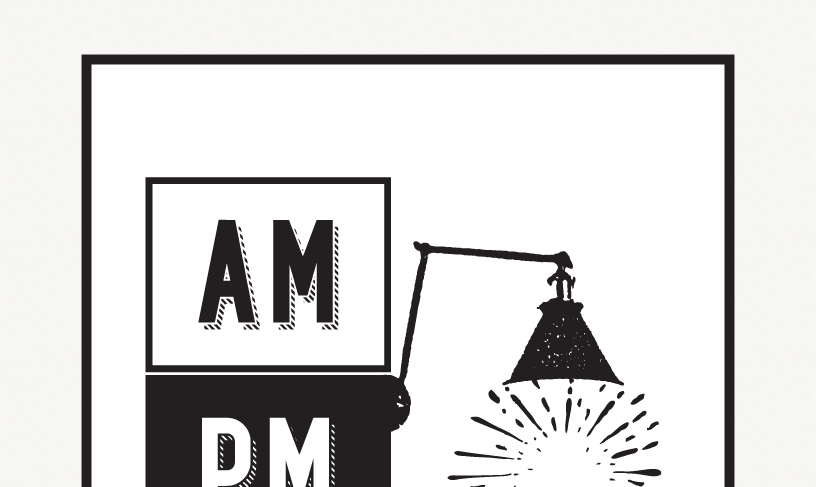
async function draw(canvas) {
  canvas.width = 816;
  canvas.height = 487;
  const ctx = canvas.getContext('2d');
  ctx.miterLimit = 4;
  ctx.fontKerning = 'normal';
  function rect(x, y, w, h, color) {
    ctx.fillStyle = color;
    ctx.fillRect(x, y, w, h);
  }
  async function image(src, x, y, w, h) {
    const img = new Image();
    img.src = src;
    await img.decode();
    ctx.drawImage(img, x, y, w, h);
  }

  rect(0, 0, 816, 487, '#fff');
  await image('assets/img1.png', 0, 0, 816, 487);
  await image('assets/img2.png', 81, 54, 654, 433);
}

draw(document.querySelector('canvas'));
